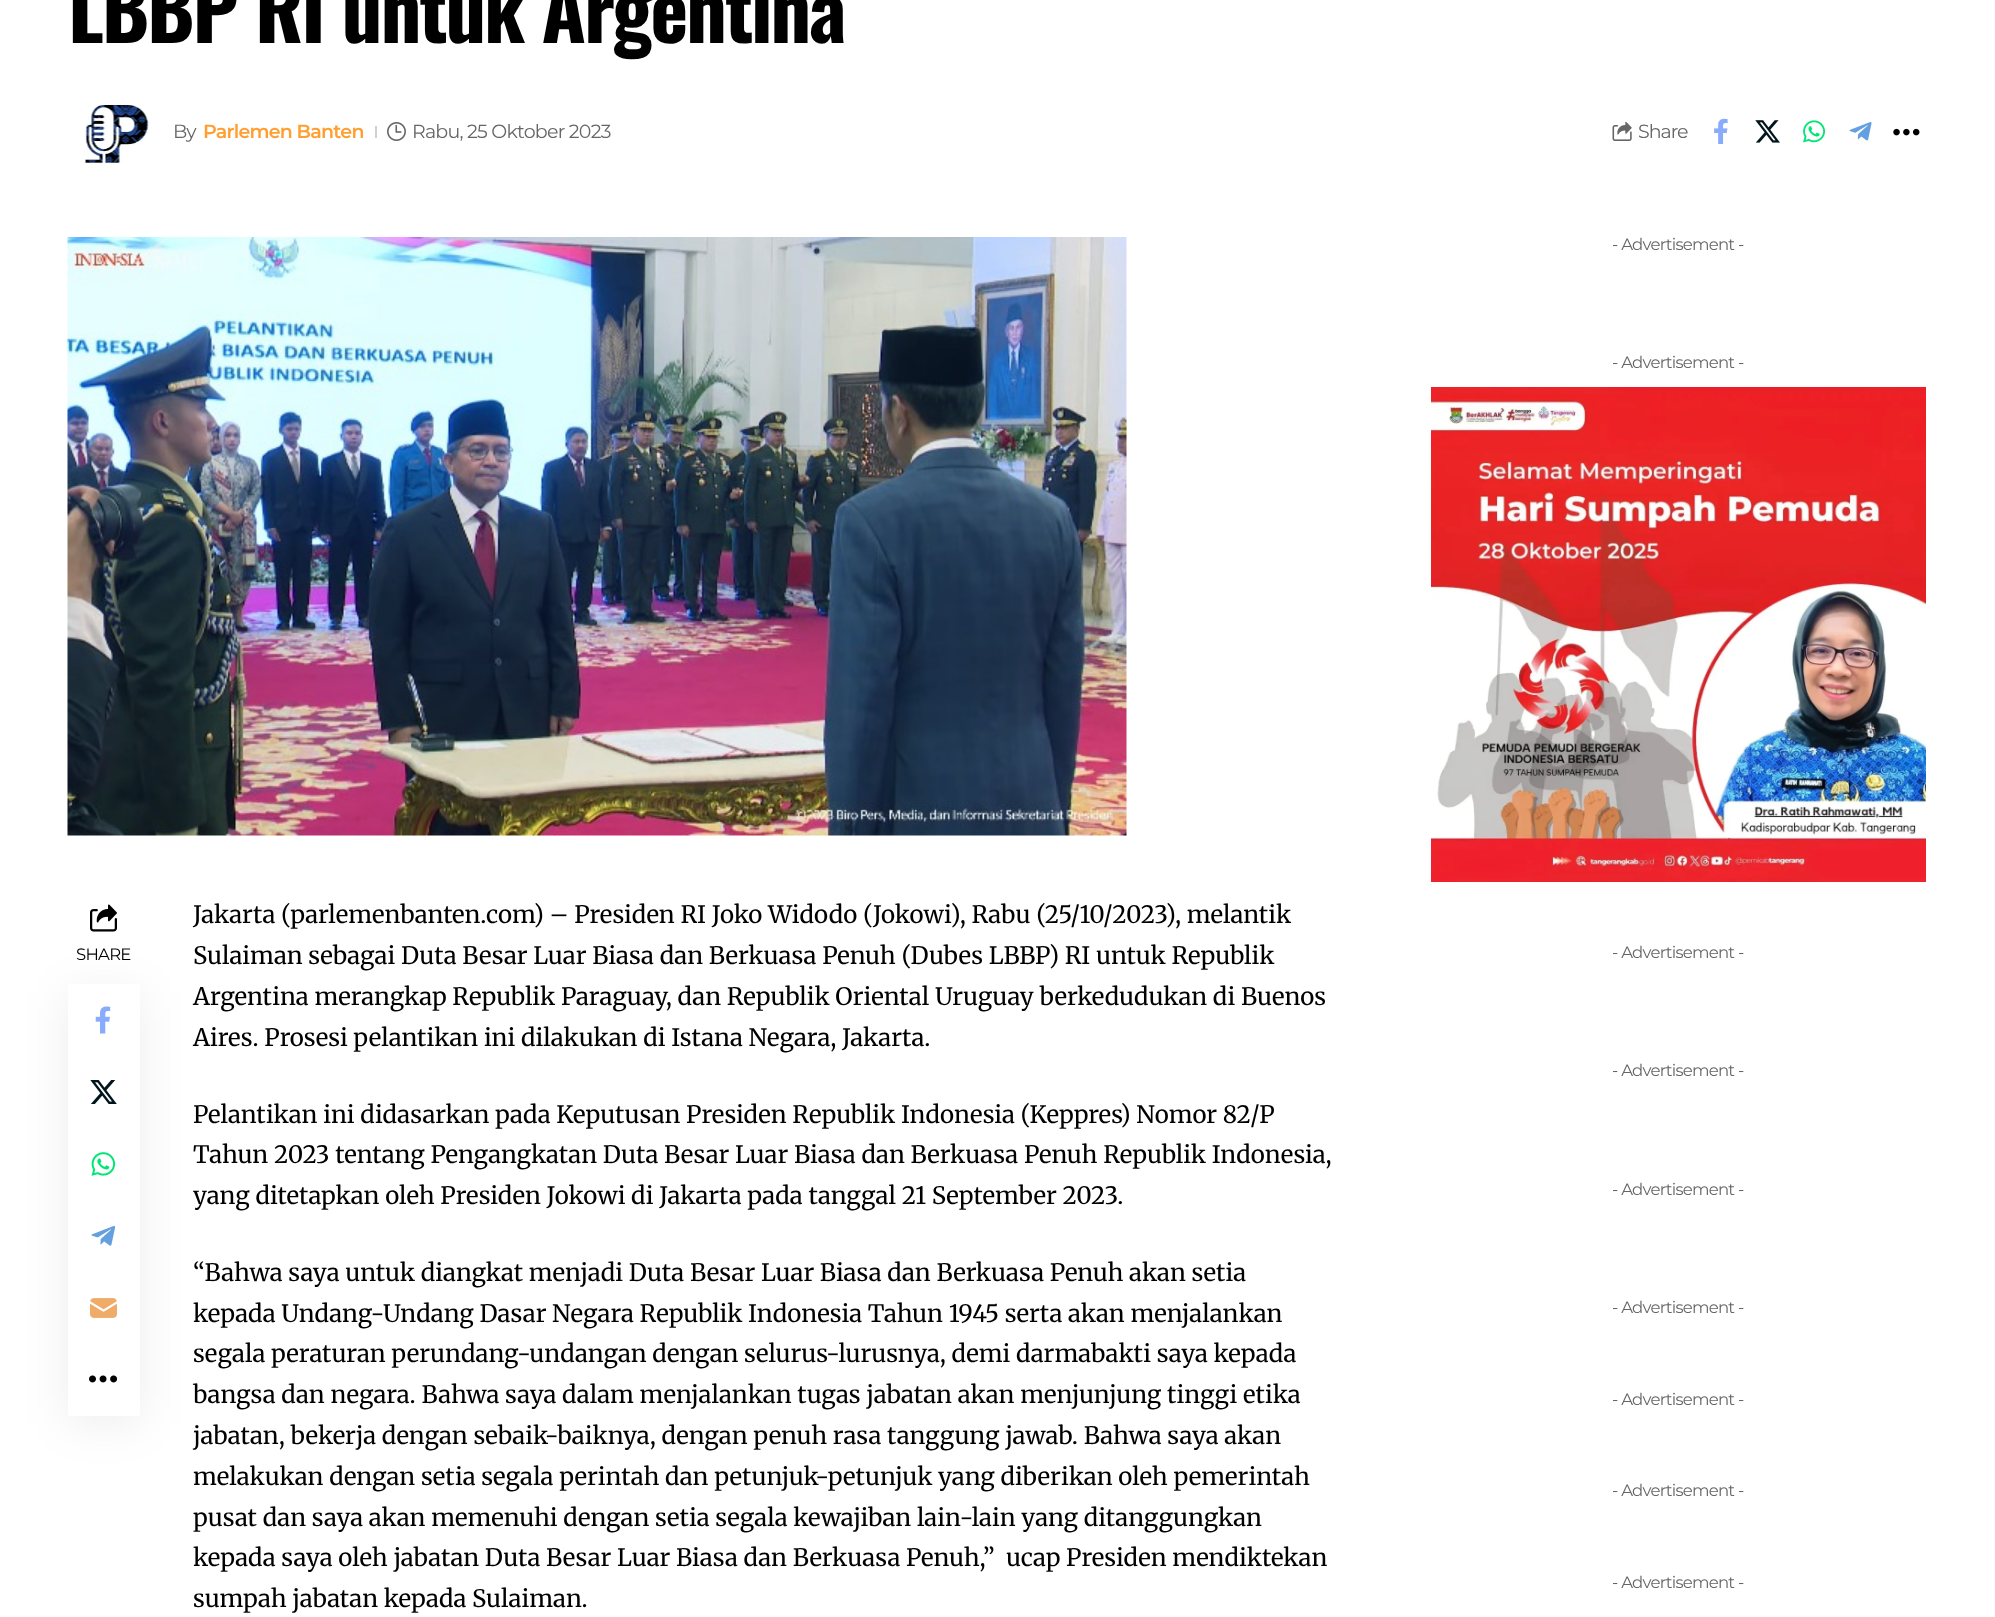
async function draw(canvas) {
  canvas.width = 1995;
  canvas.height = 1617;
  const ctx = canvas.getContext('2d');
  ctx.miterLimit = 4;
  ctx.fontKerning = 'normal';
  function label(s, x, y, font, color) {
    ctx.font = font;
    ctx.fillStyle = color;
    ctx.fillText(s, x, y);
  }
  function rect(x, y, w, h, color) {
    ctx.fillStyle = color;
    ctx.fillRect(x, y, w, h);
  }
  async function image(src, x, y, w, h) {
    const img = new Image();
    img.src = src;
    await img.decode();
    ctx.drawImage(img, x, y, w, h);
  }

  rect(0, 0, 1995, 1617, '#fff');
  ctx.letterSpacing = '-2.25px';
  label('LBBP RI untuk Argentina', 68, 43, 'bold 81px Oswald', '#000');
  await image('assets/img1.png', 85, 101, 64, 63);
  ctx.letterSpacing = '-1px';
  label('By', 173, 138, '19px Montserrat', '#666');
  ctx.letterSpacing = '-0.75px';
  label('Parlemen Banten', 203, 138, '600 19px Montserrat', '#ff9f31');
  rect(375, 126, 2, 12, '#d1d1d1');
  await image('assets/img2.png', 387, 122, 19, 19);
  label('Rabu, 25 Oktober 2023', 412, 138, '19px Montserrat', '#666');
  await image('assets/img3.png', 1612, 121, 20, 20);
  ctx.letterSpacing = '-1px';
  label('Share', 1638, 138, '19px Montserrat', '#666');
  await image('assets/img4.png', 1714, 118, 14, 26);
  await image('assets/img5.png', 1755, 120, 25, 23);
  await image('assets/img6.png', 1803, 120, 23, 23);
  await image('assets/img7.png', 1849, 122, 23, 19);
  await image('assets/img8.png', 1893, 128, 27, 8);
  await image('assets/img9.png', 67, 237, 1060, 599);
  ctx.fillStyle = '#00000012';
  ctx.filter = 'blur(22.5px)';
  ctx.beginPath();
  ctx.rect(68, 992, 72, 432);
  ctx.fill();
  ctx.filter = 'none';
  rect(68, 984, 72, 432, '#fff');
  await image('assets/img10.png', 95, 1006, 16, 28);
  await image('assets/img11.png', 90, 1080, 27, 24);
  await image('assets/img12.png', 91, 1152, 25, 24);
  await image('assets/img13.png', 91, 1225, 25, 21);
  await image('assets/img14.png', 90, 1298, 27, 20);
  await image('assets/img15.png', 89, 1375, 29, 8);
  await image('assets/img16.png', 90, 904, 27, 28);
  ctx.letterSpacing = '-0.75px';
  label('SHARE', 76, 960, '16.5px Montserrat', '#000');
  ctx.letterSpacing = '0px';
  label('Jakarta (parlemenbanten.com) – Presiden RI Joko Widodo (Jokowi), Rabu (25/10/2023), melantik', 193, 923, '24px Merriweather', '#000');
  label('Sulaiman sebagai Duta Besar Luar Biasa dan Berkuasa Penuh (Dubes LBBP) RI untuk Republik', 193, 964, '24px Merriweather', '#000');
  label('Argentina merangkap Republik Paraguay, dan Republik Oriental Uruguay berkedudukan di Buenos', 193, 1005, '24px Merriweather', '#000');
  label('Aires. Prosesi pelantikan ini dilakukan di Istana Negara, Jakarta.', 193, 1046, '24px Merriweather', '#000');
  label('Pelantikan ini didasarkan pada Keputusan Presiden Republik Indonesia (Keppres) Nomor 82/P', 193, 1123, '24px Merriweather', '#000');
  label('Tahun 2023 tentang Pengangkatan Duta Besar Luar Biasa dan Berkuasa Penuh Republik Indonesia,', 193, 1163, '24px Merriweather', '#000');
  label('yang ditetapkan oleh Presiden Jokowi di Jakarta pada tanggal 21 September 2023.', 193, 1204, '24px Merriweather', '#000');
  label('“Bahwa saya untuk diangkat menjadi Duta Besar Luar Biasa dan Berkuasa Penuh akan setia', 193, 1281, '24px Merriweather', '#000');
  label('kepada Undang-Undang Dasar Negara Republik Indonesia Tahun 1945 serta akan menjalankan', 193, 1322, '24px Merriweather', '#000');
  label('segala peraturan perundang-undangan dengan selurus-lurusnya, demi darmabakti saya kepada', 193, 1362, '24px Merriweather', '#000');
  label('bangsa dan negara. Bahwa saya dalam menjalankan tugas jabatan akan menjunjung tinggi etika', 193, 1403, '24px Merriweather', '#000');
  label('jabatan, bekerja dengan sebaik-baiknya, dengan penuh rasa tanggung jawab. Bahwa saya akan', 193, 1444, '24px Merriweather', '#000');
  label('melakukan dengan setia segala perintah dan petunjuk-petunjuk yang diberikan oleh pemerintah', 193, 1485, '24px Merriweather', '#000');
  label('pusat dan saya akan memenuhi dengan setia segala kewajiban lain-lain yang ditanggungkan', 193, 1526, '24px Merriweather', '#000');
  label('kepada saya oleh jabatan Duta Besar Luar Biasa dan Berkuasa Penuh,”  ucap Presiden mendiktekan', 193, 1566, '24px Merriweather', '#000');
  label('sumpah jabatan kepada Sulaiman.', 193, 1607, '24px Merriweather', '#000');
  ctx.letterSpacing = '-0.75px';
  label('- Advertisement -', 1612, 250, '16.5px Montserrat', '#666');
  label('- Advertisement -', 1612, 368, '16.5px Montserrat', '#666');
  await image('assets/img17.png', 1431, 387, 495, 495);
  label('- Advertisement -', 1612, 958, '16.5px Montserrat', '#666');
  label('- Advertisement -', 1612, 1076, '16.5px Montserrat', '#666');
  label('- Advertisement -', 1612, 1195, '16.5px Montserrat', '#666');
  label('- Advertisement -', 1612, 1313, '16.5px Montserrat', '#666');
  label('- Advertisement -', 1612, 1405, '16.5px Montserrat', '#666');
  label('- Advertisement -', 1612, 1496, '16.5px Montserrat', '#666');
  label('- Advertisement -', 1612, 1588, '16.5px Montserrat', '#666');
}

draw(document.querySelector('canvas'));
